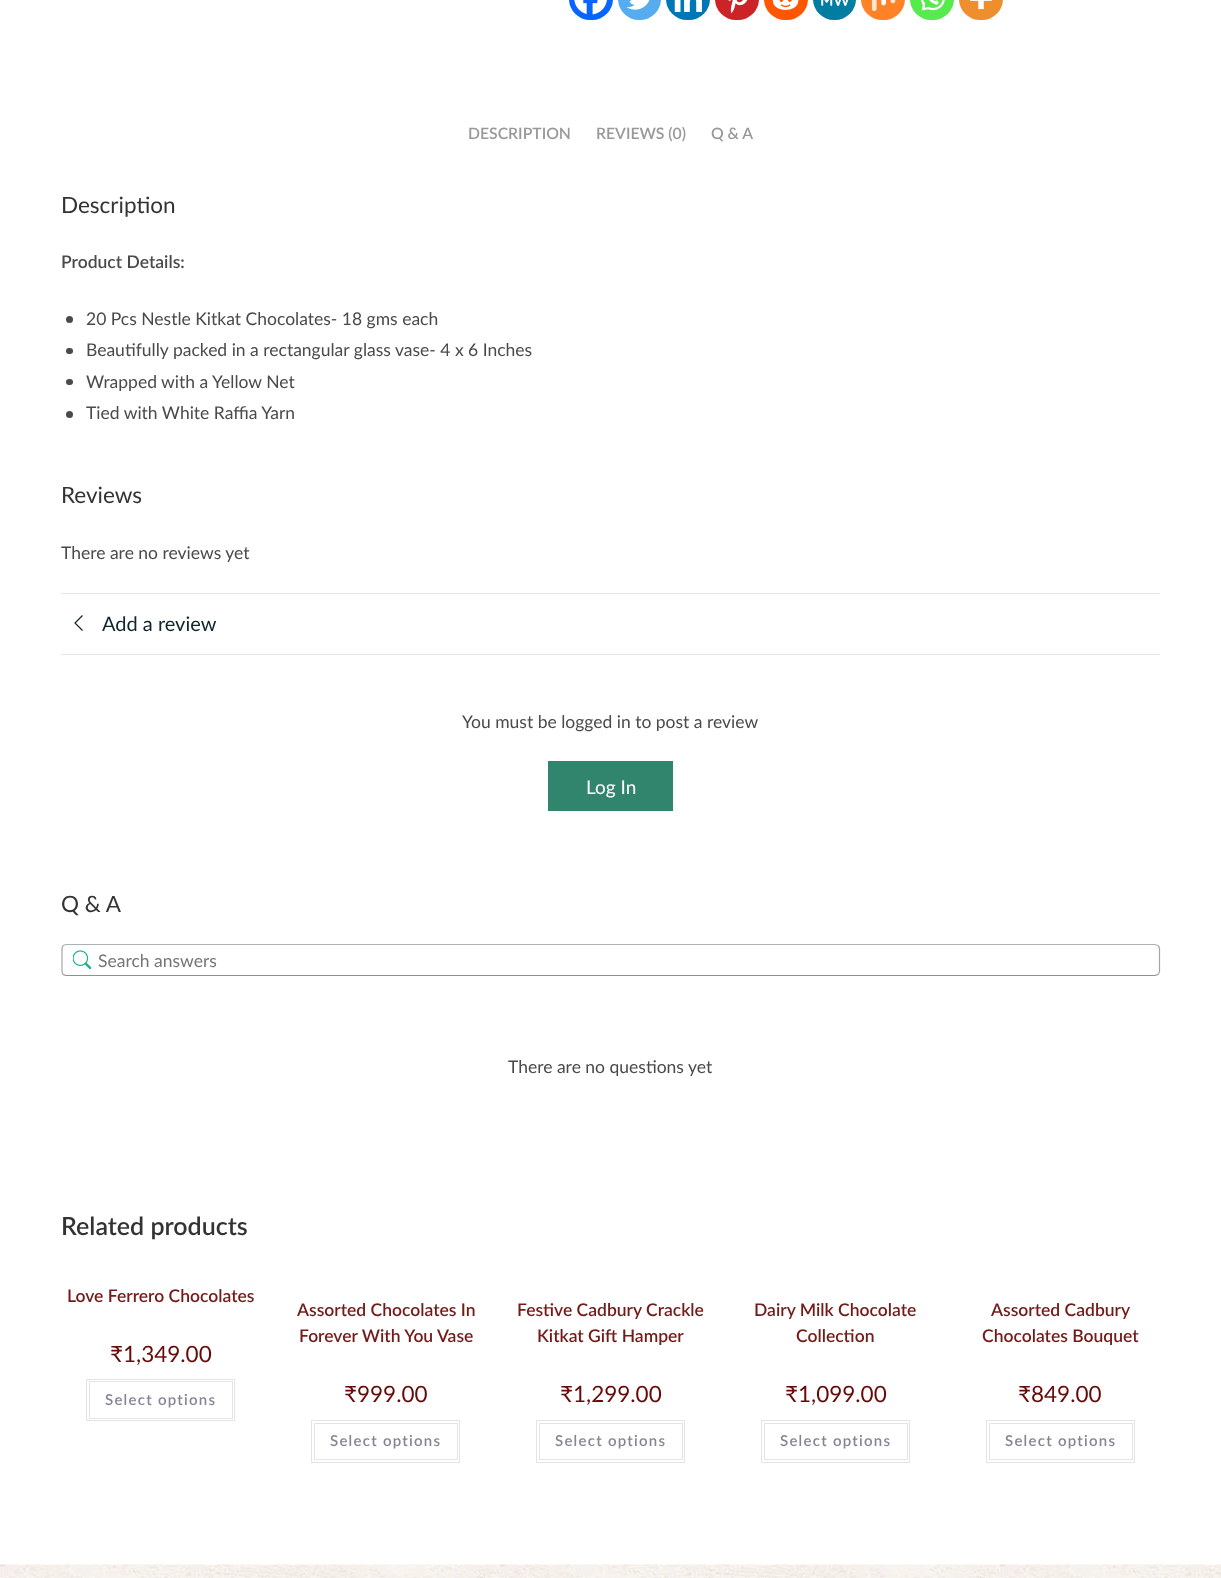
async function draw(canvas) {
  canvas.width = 1221;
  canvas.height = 1578;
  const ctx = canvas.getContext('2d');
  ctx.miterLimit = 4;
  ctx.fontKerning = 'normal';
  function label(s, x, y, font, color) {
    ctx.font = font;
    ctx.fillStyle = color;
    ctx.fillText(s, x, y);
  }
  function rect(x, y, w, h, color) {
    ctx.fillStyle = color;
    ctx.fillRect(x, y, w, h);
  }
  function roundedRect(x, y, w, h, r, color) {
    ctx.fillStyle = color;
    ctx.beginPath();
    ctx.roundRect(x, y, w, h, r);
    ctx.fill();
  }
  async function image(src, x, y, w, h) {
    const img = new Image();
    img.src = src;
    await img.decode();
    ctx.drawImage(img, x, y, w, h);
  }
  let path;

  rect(0, 0, 1221, 1578, '#fff');
  roundedRect(569, -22, 44, 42, 22, '#0765fe');
  await image('assets/img1.png', 574, 0, 33, 15);
  roundedRect(618, -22, 43, 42, 21.5, '#55acee');
  await image('assets/img2.png', 626, 0, 24, 10);
  roundedRect(666, -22, 44, 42, 22, '#0077b5');
  await image('assets/img3.png', 674, 0, 28, 12);
  roundedRect(715, -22, 44, 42, 22, '#cc2329');
  await image('assets/img4.png', 728, 0, 20, 14);
  roundedRect(764, -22, 44, 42, 22, '#ff5700');
  await image('assets/img5.png', 772, 0, 27, 10);
  roundedRect(813, -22, 43, 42, 21.5, '#007da1');
  await image('assets/img6.png', 821, 0, 28, 6);
  roundedRect(861, -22, 44, 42, 22, '#ff8226');
  await image('assets/img7.png', 871, 0, 25, 12);
  roundedRect(910, -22, 44, 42, 22, '#55eb4c');
  await image('assets/img8.png', 921, 0, 24, 11);
  roundedRect(959, -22, 44, 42, 22, '#ee8e2d');
  await image('assets/img9.png', 970, 0, 22, 10);
  label('DESCRIPTION', 468, 139, '600 15.75px Lato', '#999');
  label('REVIEWS (0)', 596, 139, '600 15.75px Lato', '#999');
  label('Q & A', 711, 139, '600 15.75px Lato', '#999');
  label('Description', 61, 213, '22.5px Lato', '#333');
  label('Product Details:', 61, 268, '600 17.5px Lato', '#4a4a4a');
  ctx.beginPath();
  ctx.arc(69.5, 319.5, 3.5, 0, 2 * Math.PI);
  ctx.fill();
  label('20 Pcs Nestle Kitkat Chocolates- 18 gms each', 86, 325, '17.5px Lato', '#4a4a4a');
  roundedRect(66, 348, 7, 6, 3, '#4a4a4a');
  label('Beautifully packed in a rectangular glass vase- 4 x 6 Inches', 86, 356, '17.5px Lato', '#4a4a4a');
  roundedRect(66, 379, 7, 6, 3, '#4a4a4a');
  label('Wrapped with a Yellow Net', 86, 388, '17.5px Lato', '#4a4a4a');
  ctx.beginPath();
  ctx.arc(69.5, 414.5, 3.5, 0, 2 * Math.PI);
  ctx.fill();
  label('Tied with White Raffia Yarn', 86, 419, '17.5px Lato', '#4a4a4a');
  label('Reviews', 61, 503, '22.5px Lato', '#333');
  label('There are no reviews yet', 61, 559, '17.5px Lato', '#4a4a4a');
  rect(61, 593, 1099, 1, '#e5e9eb');
  rect(61, 654, 1099, 1, '#e5e9eb');
  path = new Path2D('M82.5 630.5L75 623L82.5 615.5');
  ctx.strokeStyle = '#0e252c';
  ctx.lineWidth = 1.2;
  ctx.stroke(path);
  label('Add a review', 102, 631, '20px Lato', '#0e252c');
  label('You must be logged in to post a review', 462, 728, '17.5px Lato', '#4a4a4a');
  rect(548, 761, 125, 50, '#31856c');
  label('Log In', 586, 794, '19px Lato', '#fff');
  label('Q & A', 61, 912, '22.5px Lato', '#333');
  await image('assets/img10.png', 73, 950, 18, 19);
  path = new Path2D('M63 945.5L66 944.5H1155L1158 945.5');
  ctx.strokeStyle = '#adb1b8';
  ctx.stroke(path);
  path = new Path2D('M1158 945.5C1159 946.5 1159.5 947.5 1159.5 949V971C1159.5 972.5 1159 973.5 1158 974.5');
  ctx.strokeStyle = '#a2a6ac';
  ctx.stroke(path);
  path = new Path2D('M1158 974.5L1155 975.5H66L63 974.5');
  ctx.strokeStyle = '#8d9096';
  ctx.stroke(path);
  path = new Path2D('M63 974.5C62.5 973.5 62 972.5 62 971V949C62 947.5 62.5 946.5 63 945.5');
  ctx.strokeStyle = '#a2a6ac';
  ctx.stroke(path);
  label('Search answers', 98, 967, '17.5px Lato', '#757575');
  label('There are no questions yet', 508, 1073, '17.5px Lato', '#4a4a4a');
  label('Related products', 61, 1235, '600 25px Lato', '#333');
  label('Love Ferrero Chocolates', 67, 1302, '600 17.5px Lato', '#721b18');
  label('₹1,349.00', 110, 1362, '22.5px Lato', '#670a09');
  ctx.strokeStyle = '#e4e4e4';
  ctx.lineWidth = 1;
  ctx.strokeRect(86.5, 1379.5, 148, 41);
  ctx.strokeRect(89.5, 1381.5, 143, 37);
  ctx.letterSpacing = '1.25px';
  label('Select options', 105, 1405, '600 15px Lato', '#848494');
  ctx.letterSpacing = '0px';
  label('Assorted Chocolates In', 297, 1316, '600 17.5px Lato', '#721b18');
  label('Forever With You Vase', 299, 1342, '600 17.5px Lato', '#721b18');
  label('₹999.00', 344, 1402, '22.5px Lato', '#670a09');
  ctx.strokeRect(311.5, 1420.5, 148, 42);
  ctx.strokeRect(314.5, 1423.5, 143, 36);
  ctx.letterSpacing = '1.25px';
  label('Select options', 330, 1446, '600 15px Lato', '#848494');
  ctx.letterSpacing = '0px';
  label('Festive Cadbury Crackle', 517, 1316, '600 17.5px Lato', '#721b18');
  label('Kitkat Gift Hamper', 537, 1342, '600 17.5px Lato', '#721b18');
  label('₹1,299.00', 560, 1402, '22.5px Lato', '#670a09');
  ctx.strokeRect(536.5, 1420.5, 148, 42);
  ctx.strokeRect(539.5, 1423.5, 143, 36);
  ctx.letterSpacing = '1.25px';
  label('Select options', 555, 1446, '600 15px Lato', '#848494');
  ctx.letterSpacing = '0px';
  label('Dairy Milk Chocolate', 754, 1316, '600 17.5px Lato', '#721b18');
  label('Collection', 796, 1342, '600 17.5px Lato', '#721b18');
  label('₹1,099.00', 785, 1402, '22.5px Lato', '#670a09');
  ctx.strokeRect(761.5, 1420.5, 148, 42);
  ctx.strokeRect(764.5, 1423.5, 143, 36);
  ctx.letterSpacing = '1.25px';
  label('Select options', 780, 1446, '600 15px Lato', '#848494');
  ctx.letterSpacing = '0px';
  label('Assorted Cadbury', 991, 1316, '600 17.5px Lato', '#721b18');
  label('Chocolates Bouquet', 982, 1342, '600 17.5px Lato', '#721b18');
  label('₹849.00', 1018, 1402, '22.5px Lato', '#670a09');
  ctx.strokeRect(986.5, 1420.5, 148, 42);
  ctx.strokeRect(989.5, 1423.5, 143, 36);
  ctx.letterSpacing = '1.25px';
  label('Select options', 1005, 1446, '600 15px Lato', '#848494');
  await image('assets/img11.png', 0, 1564, 1221, 14);
}

draw(document.querySelector('canvas'));
